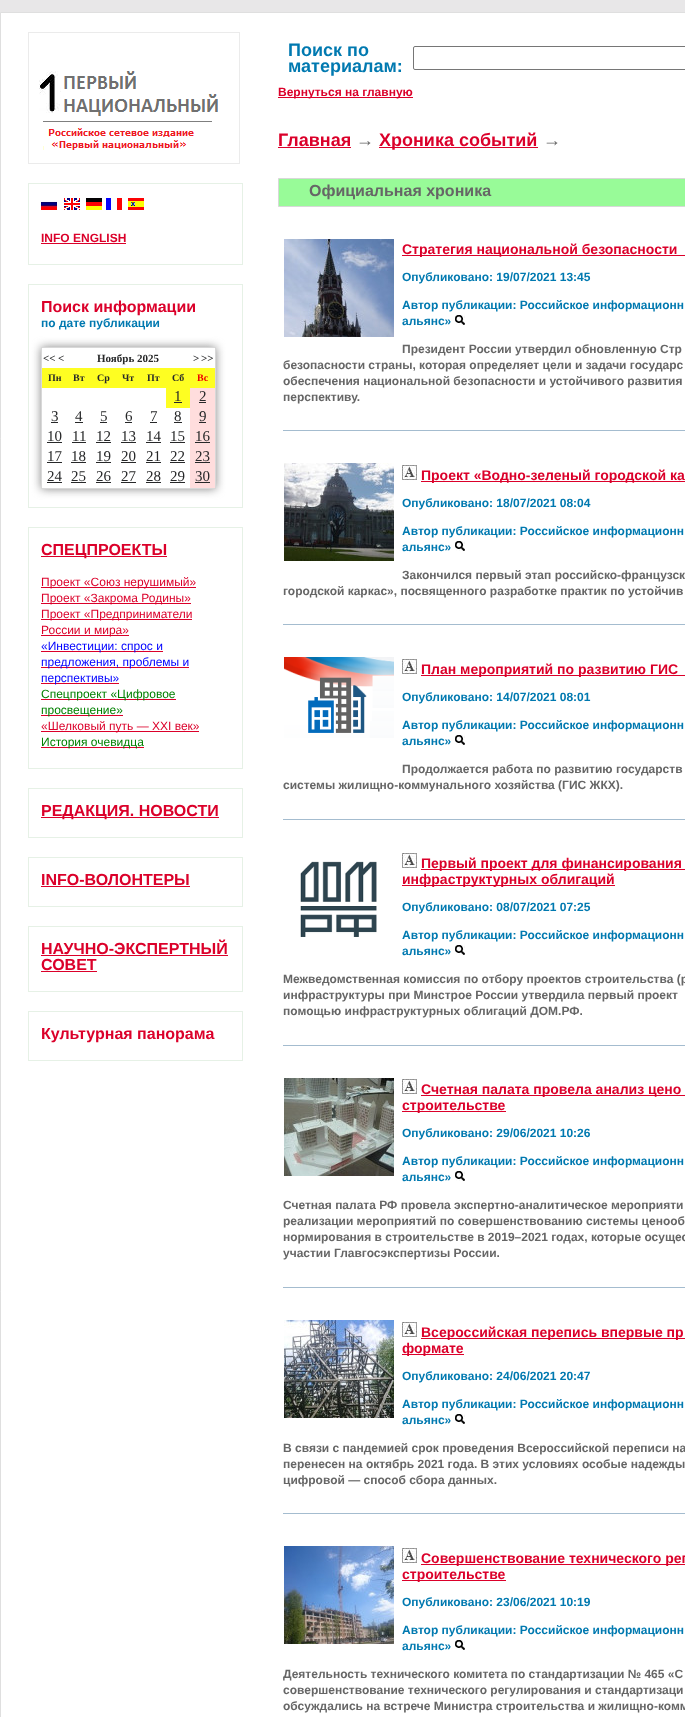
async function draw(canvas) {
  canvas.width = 685;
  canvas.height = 1717;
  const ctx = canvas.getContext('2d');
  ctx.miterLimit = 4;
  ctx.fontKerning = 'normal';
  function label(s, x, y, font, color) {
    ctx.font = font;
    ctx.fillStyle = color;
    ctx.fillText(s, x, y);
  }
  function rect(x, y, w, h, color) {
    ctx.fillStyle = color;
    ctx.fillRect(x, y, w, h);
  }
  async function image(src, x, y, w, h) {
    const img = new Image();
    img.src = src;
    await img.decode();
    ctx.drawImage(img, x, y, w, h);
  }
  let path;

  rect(0, 0, 685, 1717, '#e8e7e8');
  ctx.fillStyle = '#fff';
  ctx.beginPath();
  ctx.rect(0.5, 12.5, 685, 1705);
  ctx.fill();
  ctx.strokeStyle = '#dfdfdf';
  ctx.stroke();
  ctx.strokeStyle = '#ebebeb';
  ctx.strokeRect(28.5, 32.5, 211, 131);
  await image('assets/img1.png', 39, 71, 179, 79);
  ctx.strokeStyle = '#e6f1e6';
  ctx.strokeRect(28.5, 183.5, 214, 81);
  await image('assets/img2.png', 41, 201, 16, 9);
  await image('assets/img3.png', 64, 198, 16, 12);
  await image('assets/img4.png', 86, 198, 16, 12);
  await image('assets/img5.png', 106, 198, 16, 12);
  await image('assets/img6.png', 128, 198, 16, 12);
  label('INFO ENGLISH', 41, 242, 'bold 12px Liberation Sans', '#db002a');
  rect(41, 243, 85, 1, '#db002a');
  ctx.strokeRect(28.5, 284.5, 214, 223);
  label('Поиск информации', 41, 312, 'bold 16px Liberation Sans', '#db002a');
  label('по дате публикации', 41, 327, 'bold 12px Liberation Sans', '#0079b0');
  ctx.save();
  path = new Path2D('M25 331H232V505H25ZM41 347H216V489H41Z');
  ctx.clip(path, 'evenodd');
  ctx.fillStyle = '#888';
  ctx.filter = 'blur(5px)';
  ctx.beginPath();
  ctx.rect(41, 347, 175, 142);
  ctx.fill();
  ctx.filter = 'none';
  ctx.restore();
  rect(41, 347, 175, 1, '#d8d8d8');
  rect(215, 347, 1, 142, '#d8d8d8');
  rect(41, 488, 175, 1, '#d8d8d8');
  rect(41, 347, 1, 142, '#d8d8d8');
  label('<<', 43, 362, 'bold 11px Liberation Serif', '#272829');
  label('<', 58, 362, 'bold 11px Liberation Serif', '#272829');
  label('Ноябрь 2025', 97, 362, 'bold 11px Liberation Serif', '#272829');
  label('>', 193, 362, 'bold 11px Liberation Serif', '#272829');
  label('>>', 201, 362, 'bold 11px Liberation Serif', '#272829');
  rect(42, 368, 173, 20, '#fefe22');
  label('Пн', 48, 381, 'bold 10px Liberation Serif', '#272829');
  label('Вт', 73, 381, 'bold 10px Liberation Serif', '#272829');
  label('Ср', 97, 381, 'bold 10px Liberation Serif', '#272829');
  label('Чт', 122, 381, 'bold 10px Liberation Serif', '#272829');
  label('Пт', 147, 381, 'bold 10px Liberation Serif', '#272829');
  label('Сб', 172, 381, 'bold 10px Liberation Serif', '#272829');
  label('Вс', 197, 381, 'bold 10px Liberation Serif', '#e00');
  rect(166, 388, 24, 20, '#fefe22');
  label('1', 174, 401, '15px Liberation Serif', '#272829');
  rect(174, 402, 8, 1, '#272829');
  rect(190, 388, 25, 100, '#fdd');
  label('2', 199, 401, '15px Liberation Serif', '#272829');
  rect(199, 402, 7, 1, '#272829');
  label('3', 51, 421, '15px Liberation Serif', '#272829');
  rect(51, 422, 7, 1, '#272829');
  label('4', 75, 421, '15px Liberation Serif', '#272829');
  rect(75, 422, 8, 1, '#272829');
  label('5', 100, 421, '15px Liberation Serif', '#272829');
  rect(100, 422, 7, 1, '#272829');
  label('6', 125, 421, '15px Liberation Serif', '#272829');
  rect(125, 422, 7, 1, '#272829');
  label('7', 150, 421, '15px Liberation Serif', '#272829');
  rect(150, 422, 7, 1, '#272829');
  label('8', 174, 421, '15px Liberation Serif', '#272829');
  rect(174, 422, 8, 1, '#272829');
  label('9', 199, 421, '15px Liberation Serif', '#272829');
  rect(199, 422, 7, 1, '#272829');
  label('10', 47, 441, '15px Liberation Serif', '#272829');
  rect(47, 442, 15, 1, '#272829');
  label('11', 72, 441, '15px Liberation Serif', '#272829');
  rect(72, 442, 14, 1, '#272829');
  label('12', 96, 441, '15px Liberation Serif', '#272829');
  rect(96, 442, 15, 1, '#272829');
  label('13', 121, 441, '15px Liberation Serif', '#272829');
  rect(121, 442, 15, 1, '#272829');
  label('14', 146, 441, '15px Liberation Serif', '#272829');
  rect(146, 442, 15, 1, '#272829');
  label('15', 170, 441, '15px Liberation Serif', '#272829');
  rect(170, 442, 15, 1, '#272829');
  label('16', 195, 441, '15px Liberation Serif', '#272829');
  rect(195, 442, 15, 1, '#272829');
  label('17', 47, 461, '15px Liberation Serif', '#272829');
  rect(47, 462, 15, 1, '#272829');
  label('18', 71, 461, '15px Liberation Serif', '#272829');
  rect(71, 462, 15, 1, '#272829');
  label('19', 96, 461, '15px Liberation Serif', '#272829');
  rect(96, 462, 15, 1, '#272829');
  label('20', 121, 461, '15px Liberation Serif', '#272829');
  rect(121, 462, 15, 1, '#272829');
  label('21', 146, 461, '15px Liberation Serif', '#272829');
  rect(146, 462, 15, 1, '#272829');
  label('22', 170, 461, '15px Liberation Serif', '#272829');
  rect(170, 462, 15, 1, '#272829');
  label('23', 195, 461, '15px Liberation Serif', '#272829');
  rect(195, 462, 15, 1, '#272829');
  label('24', 47, 481, '15px Liberation Serif', '#272829');
  rect(47, 482, 15, 1, '#272829');
  label('25', 71, 481, '15px Liberation Serif', '#272829');
  rect(71, 482, 15, 1, '#272829');
  label('26', 96, 481, '15px Liberation Serif', '#272829');
  rect(96, 482, 15, 1, '#272829');
  label('27', 121, 481, '15px Liberation Serif', '#272829');
  rect(121, 482, 15, 1, '#272829');
  label('28', 146, 481, '15px Liberation Serif', '#272829');
  rect(146, 482, 15, 1, '#272829');
  label('29', 170, 481, '15px Liberation Serif', '#272829');
  rect(170, 482, 15, 1, '#272829');
  label('30', 195, 481, '15px Liberation Serif', '#272829');
  rect(195, 482, 15, 1, '#272829');
  ctx.strokeRect(28.5, 527.5, 214, 241);
  rect(41, 556, 126, 1, '#db002a');
  label('СПЕЦПРОЕКТЫ', 41, 555, 'bold 16px Liberation Sans', '#db002a');
  rect(41, 587, 155, 1, '#db002a');
  label('Проект «Союз нерушимый»', 41, 586, '12px Liberation Sans', '#db002a');
  rect(41, 603, 150, 1, '#db002a');
  label('Проект «Закрома Родины»', 41, 602, '12px Liberation Sans', '#db002a');
  rect(41, 619, 151, 1, '#db002a');
  label('Проект «Предприниматели', 41, 618, '12px Liberation Sans', '#db002a');
  rect(41, 635, 88, 1, '#db002a');
  label('России и мира»', 41, 634, '12px Liberation Sans', '#db002a');
  rect(41, 651, 122, 1, '#db002a');
  label('«Инвестиции: спрос и', 41, 650, '12px Liberation Sans', '#00f');
  rect(41, 667, 148, 1, '#db002a');
  label('предложения, проблемы и', 41, 666, '12px Liberation Sans', '#00f');
  rect(41, 683, 78, 1, '#db002a');
  label('перспективы»', 41, 682, '12px Liberation Sans', '#00f');
  rect(41, 699, 135, 1, '#db002a');
  label('Спецпроект «Цифровое', 41, 698, '12px Liberation Sans', '#008000');
  rect(41, 715, 82, 1, '#db002a');
  label('просвещение»', 41, 714, '12px Liberation Sans', '#008000');
  rect(41, 731, 158, 1, '#db002a');
  label('«Шелковый путь — XXI век»', 41, 730, '12px Liberation Sans', '#db002a');
  rect(41, 747, 103, 1, '#db002a');
  label('История очевидца', 41, 746, '12px Liberation Sans', '#008000');
  ctx.strokeRect(28.5, 788.5, 214, 49);
  rect(41, 817, 178, 1, '#db002a');
  label('РЕДАКЦИЯ. НОВОСТИ', 41, 816, 'bold 16px Liberation Sans', '#db002a');
  ctx.strokeRect(28.5, 857.5, 214, 49);
  label('INFO-ВОЛОНТЕРЫ', 41, 885, 'bold 16px Liberation Sans', '#db002a');
  rect(41, 886, 149, 1, '#db002a');
  ctx.strokeRect(28.5, 926.5, 214, 65);
  label('НАУЧНО-ЭКСПЕРТНЫЙ', 41, 954, 'bold 16px Liberation Sans', '#db002a');
  rect(41, 955, 187, 1, '#db002a');
  label('СОВЕТ', 41, 970, 'bold 16px Liberation Sans', '#db002a');
  rect(41, 971, 56, 1, '#db002a');
  ctx.strokeRect(28.5, 1011.5, 214, 49);
  label('Культурная панорама', 41, 1039, 'bold 16px Liberation Sans', '#db002a');
  label('Поиск по', 288, 56, 'bold 18px Liberation Sans', '#0079b0');
  label('материалам:', 288, 72, 'bold 18px Liberation Sans', '#0079b0');
  ctx.beginPath();
  ctx.roundRect(413.5, 46.5, 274, 23, 1.5);
  ctx.strokeStyle = '#767676';
  ctx.stroke();
  rect(278, 97, 135, 1, '#db002a');
  label('Вернуться на главную', 278, 96, 'bold 12px Liberation Sans', '#db002a');
  label('Главная', 278, 146, 'bold 18px Liberation Sans', '#db002a');
  rect(278, 147, 73, 1, '#db002a');
  label('→', 356, 146, 'bold 18px Liberation Sans', '#666');
  rect(379, 147, 159, 1, '#db002a');
  label('Хроника событий', 379, 146, 'bold 18px Liberation Sans', '#db002a');
  label('→', 543, 146, 'bold 18px Liberation Sans', '#666');
  ctx.fillStyle = '#98fb98';
  ctx.beginPath();
  ctx.rect(278.5, 178.5, 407, 28);
  ctx.fill();
  ctx.strokeStyle = '#d8d8d8';
  ctx.stroke();
  label('Официальная хроника', 309, 196, 'bold 16px Liberation Sans', '#666');
  rect(283, 430, 402, 1, '#a4bccf');
  await image('assets/img7.png', 284, 239, 110, 98);
  rect(402, 255, 283, 1, '#db002a');
  label('Стратегия национальной безопасности', 402, 254, 'bold 14px Liberation Sans', '#db002a');
  label('Опубликовано: 19/07/2021 13:45', 402, 281, 'bold 12px Liberation Sans', '#0079b0');
  label('Автор публикации: Российское информационн', 402, 309, 'bold 12px Liberation Sans', '#0079b0');
  label('альянс»', 402, 325, 'bold 12px Liberation Sans', '#0079b0');
  await image('assets/img8.png', 455, 315, 10, 10);
  label('Президент России утвердил обновленную Стр', 402, 353, 'bold 12px Liberation Sans', '#666');
  label('безопасности страны, которая определяет цели и задачи государс', 283, 369, 'bold 12px Liberation Sans', '#666');
  label('обеспечения национальной безопасности и устойчивого развития', 283, 385, 'bold 12px Liberation Sans', '#666');
  label('перспективу.', 283, 401, 'bold 12px Liberation Sans', '#666');
  rect(283, 624, 402, 1, '#a4bccf');
  await image('assets/img9.png', 284, 463, 110, 98);
  await image('assets/img10.png', 402, 465, 15, 15);
  rect(421, 481, 264, 1, '#db002a');
  label('Проект «Водно-зеленый городской ка', 421, 480, 'bold 14px Liberation Sans', '#db002a');
  label('Опубликовано: 18/07/2021 08:04', 402, 507, 'bold 12px Liberation Sans', '#0079b0');
  label('Автор публикации: Российское информационн', 402, 535, 'bold 12px Liberation Sans', '#0079b0');
  label('альянс»', 402, 551, 'bold 12px Liberation Sans', '#0079b0');
  await image('assets/img8.png', 455, 541, 10, 10);
  label('Закончился первый этап российско-французск', 402, 579, 'bold 12px Liberation Sans', '#666');
  label('городской каркас», посвященного разработке практик по устойчив', 283, 595, 'bold 12px Liberation Sans', '#666');
  rect(283, 819, 402, 1, '#a4bccf');
  await image('assets/img11.png', 284, 657, 110, 81);
  await image('assets/img10.png', 402, 659, 15, 15);
  rect(421, 675, 264, 1, '#db002a');
  label('План мероприятий по развитию ГИС', 421, 674, 'bold 14px Liberation Sans', '#db002a');
  label('Опубликовано: 14/07/2021 08:01', 402, 701, 'bold 12px Liberation Sans', '#0079b0');
  label('Автор публикации: Российское информационн', 402, 729, 'bold 12px Liberation Sans', '#0079b0');
  label('альянс»', 402, 745, 'bold 12px Liberation Sans', '#0079b0');
  await image('assets/img8.png', 455, 735, 10, 10);
  label('Продолжается работа по развитию государств', 402, 773, 'bold 12px Liberation Sans', '#666');
  label('системы жилищно-коммунального хозяйства (ГИС ЖКХ).', 283, 789, 'bold 12px Liberation Sans', '#666');
  rect(283, 1045, 402, 1, '#a4bccf');
  await image('assets/img12.png', 300, 861, 77, 76);
  await image('assets/img10.png', 402, 853, 15, 15);
  rect(421, 869, 264, 1, '#db002a');
  label('Первый проект для финансирования', 421, 868, 'bold 14px Liberation Sans', '#db002a');
  rect(402, 885, 213, 1, '#db002a');
  label('инфраструктурных облигаций', 402, 884, 'bold 14px Liberation Sans', '#db002a');
  label('Опубликовано: 08/07/2021 07:25', 402, 911, 'bold 12px Liberation Sans', '#0079b0');
  label('Автор публикации: Российское информационн', 402, 939, 'bold 12px Liberation Sans', '#0079b0');
  label('альянс»', 402, 955, 'bold 12px Liberation Sans', '#0079b0');
  await image('assets/img8.png', 455, 945, 10, 10);
  label('Межведомственная комиссия по отбору проектов строительства (р', 283, 983, 'bold 12px Liberation Sans', '#666');
  label('инфраструктуры при Минстрое России утвердила первый проект', 283, 999, 'bold 12px Liberation Sans', '#666');
  label('помощью инфраструктурных облигаций ДОМ.РФ.', 283, 1015, 'bold 12px Liberation Sans', '#666');
  rect(283, 1287, 402, 1, '#a4bccf');
  await image('assets/img13.png', 284, 1078, 110, 98);
  await image('assets/img10.png', 402, 1079, 15, 15);
  rect(421, 1095, 264, 1, '#db002a');
  label('Счетная палата провела анализ цено', 421, 1094, 'bold 14px Liberation Sans', '#db002a');
  rect(402, 1111, 104, 1, '#db002a');
  label('строительстве', 402, 1110, 'bold 14px Liberation Sans', '#db002a');
  label('Опубликовано: 29/06/2021 10:26', 402, 1137, 'bold 12px Liberation Sans', '#0079b0');
  label('Автор публикации: Российское информационн', 402, 1165, 'bold 12px Liberation Sans', '#0079b0');
  label('альянс»', 402, 1181, 'bold 12px Liberation Sans', '#0079b0');
  await image('assets/img8.png', 455, 1171, 10, 10);
  label('Счетная палата РФ провела экспертно-аналитическое мероприяти', 283, 1209, 'bold 12px Liberation Sans', '#666');
  label('реализации мероприятий по совершенствованию системы ценооб', 283, 1225, 'bold 12px Liberation Sans', '#666');
  label('нормирования в строительстве в 2019–2021 годах, которые осущес', 283, 1241, 'bold 12px Liberation Sans', '#666');
  label('участии Главгосэкспертизы России.', 283, 1257, 'bold 12px Liberation Sans', '#666');
  rect(283, 1513, 402, 1, '#a4bccf');
  await image('assets/img14.png', 284, 1320, 110, 98);
  await image('assets/img10.png', 402, 1322, 15, 15);
  rect(421, 1338, 264, 1, '#db002a');
  label('Всероссийская перепись впервые пр', 421, 1337, 'bold 14px Liberation Sans', '#db002a');
  rect(402, 1354, 62, 1, '#db002a');
  label('формате', 402, 1353, 'bold 14px Liberation Sans', '#db002a');
  label('Опубликовано: 24/06/2021 20:47', 402, 1380, 'bold 12px Liberation Sans', '#0079b0');
  label('Автор публикации: Российское информационн', 402, 1408, 'bold 12px Liberation Sans', '#0079b0');
  label('альянс»', 402, 1424, 'bold 12px Liberation Sans', '#0079b0');
  await image('assets/img8.png', 455, 1414, 10, 10);
  label('В связи с пандемией срок проведения Всероссийской переписи на', 283, 1452, 'bold 12px Liberation Sans', '#666');
  label('перенесен на октябрь 2021 года. В этих условиях особые надежды', 283, 1468, 'bold 12px Liberation Sans', '#666');
  label('цифровой — способ сбора данных.', 283, 1484, 'bold 12px Liberation Sans', '#666');
  await image('assets/img15.png', 284, 1546, 110, 98);
  await image('assets/img10.png', 402, 1548, 15, 15);
  rect(421, 1564, 264, 1, '#db002a');
  label('Совершенствование технического рег', 421, 1563, 'bold 14px Liberation Sans', '#db002a');
  rect(402, 1580, 104, 1, '#db002a');
  label('строительстве', 402, 1579, 'bold 14px Liberation Sans', '#db002a');
  label('Опубликовано: 23/06/2021 10:19', 402, 1606, 'bold 12px Liberation Sans', '#0079b0');
  label('Автор публикации: Российское информационн', 402, 1634, 'bold 12px Liberation Sans', '#0079b0');
  label('альянс»', 402, 1650, 'bold 12px Liberation Sans', '#0079b0');
  await image('assets/img8.png', 455, 1640, 10, 10);
  label('Деятельность технического комитета по стандартизации № 465 «С', 283, 1678, 'bold 12px Liberation Sans', '#666');
  label('совершенствование технического регулирования и стандартизаци', 283, 1694, 'bold 12px Liberation Sans', '#666');
  label('обсуждались на встрече Министра строительства и жилищно-комм', 283, 1710, 'bold 12px Liberation Sans', '#666');
}

draw(document.querySelector('canvas'));
